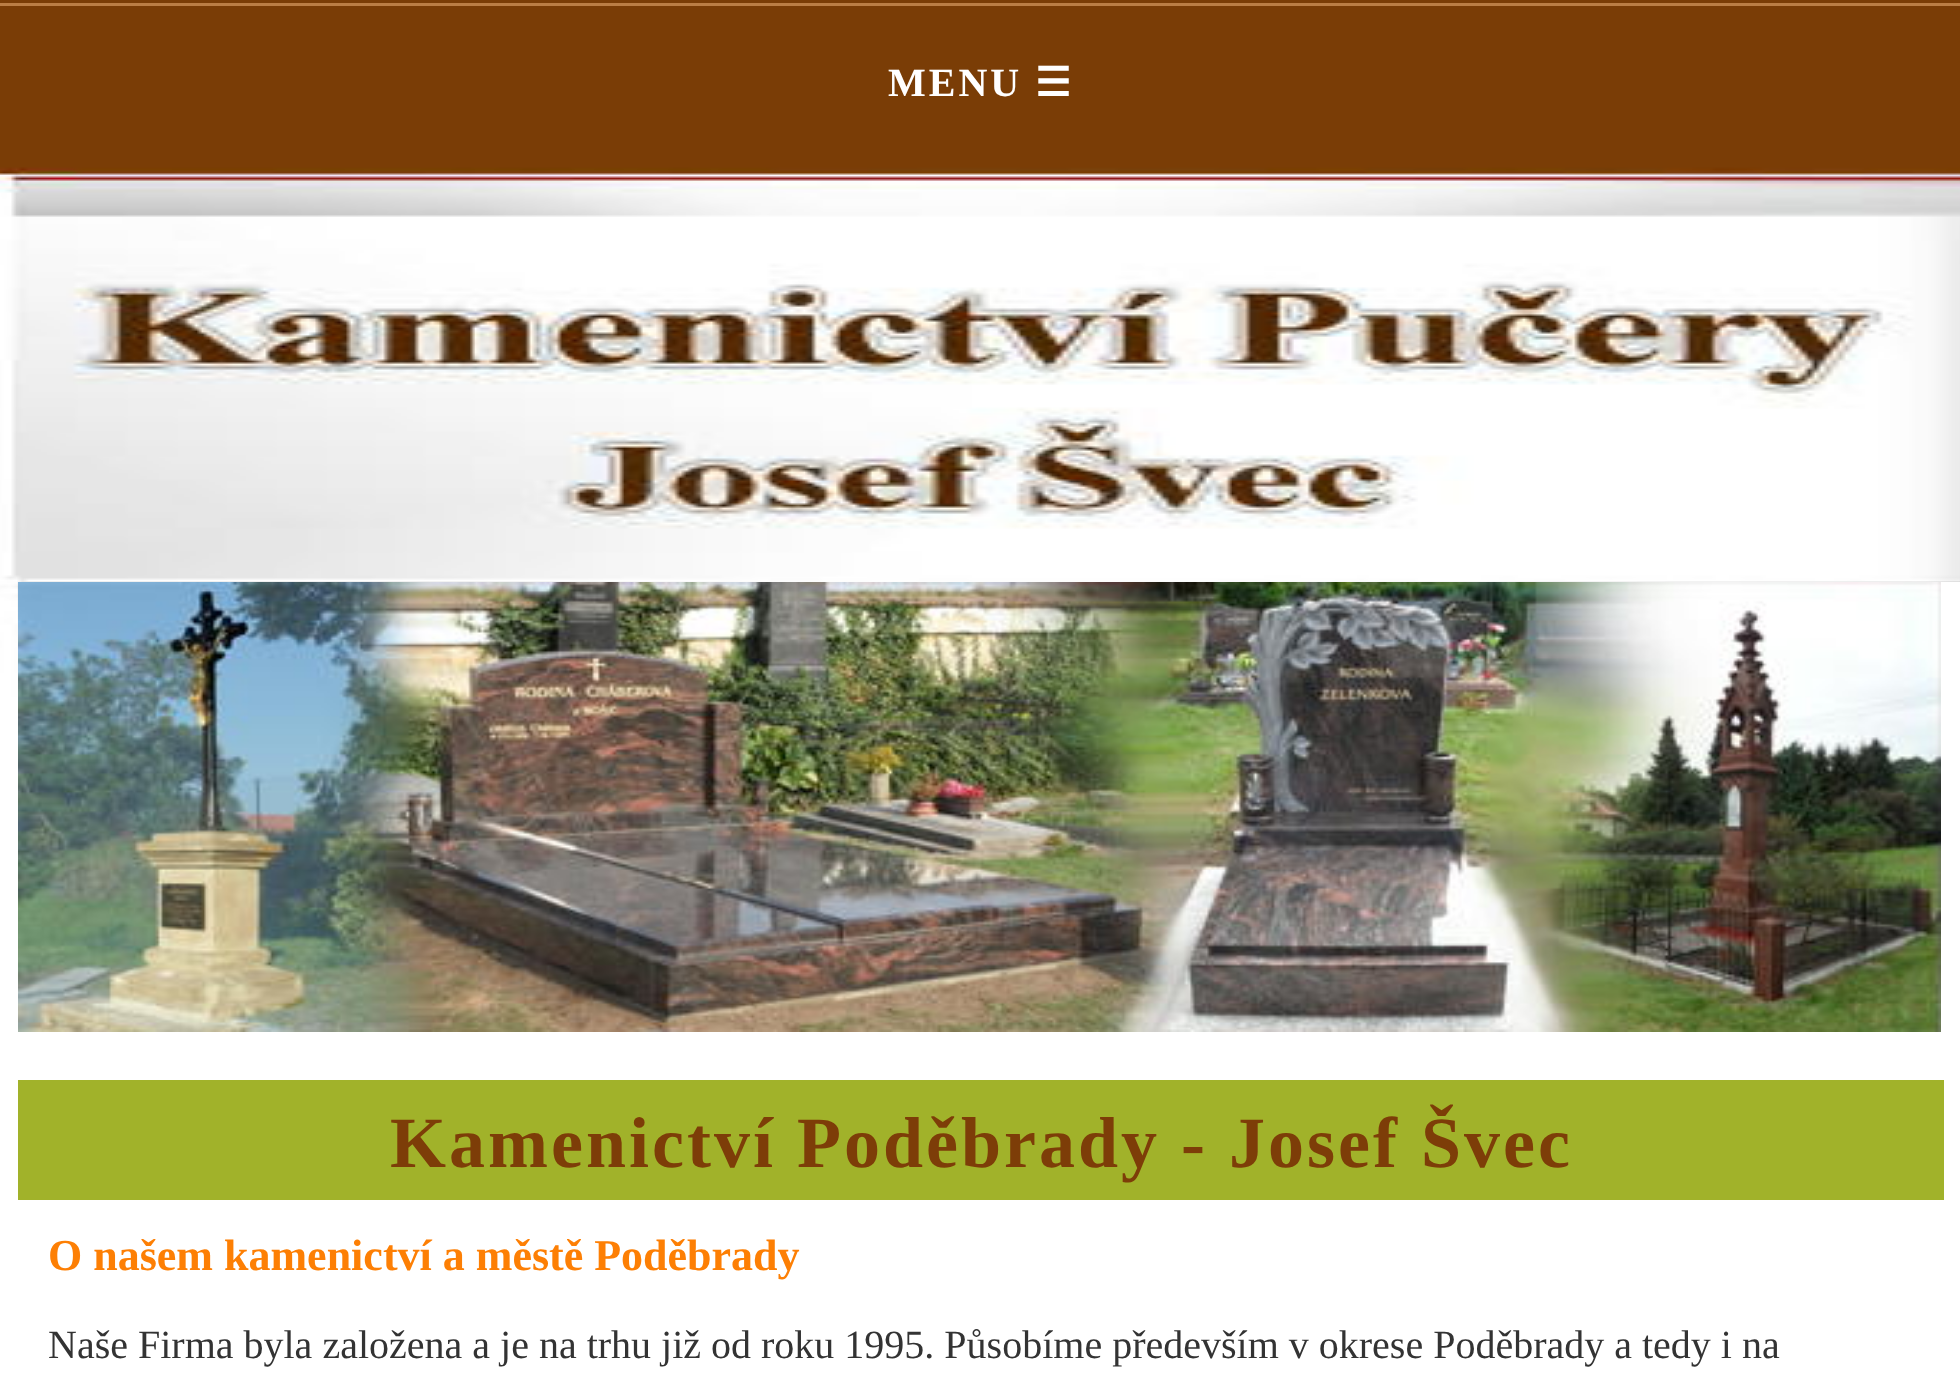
async function draw(canvas) {
  canvas.width = 1960;
  canvas.height = 1381;
  const ctx = canvas.getContext('2d');
  ctx.miterLimit = 4;
  ctx.fontKerning = 'normal';
  function label(s, x, y, font, color) {
    ctx.font = font;
    ctx.fillStyle = color;
    ctx.fillText(s, x, y);
  }
  function rect(x, y, w, h, color) {
    ctx.fillStyle = color;
    ctx.fillRect(x, y, w, h);
  }
  async function image(src, x, y, w, h) {
    const img = new Image();
    img.src = src;
    await img.decode();
    ctx.drawImage(img, x, y, w, h);
  }

  rect(0, 0, 1960, 1381, '#fff');
  await image('assets/img1.png', 0, 0, 1960, 734);
  rect(0, 3, 1960, 3, '#ba7e45');
  ctx.letterSpacing = '3px';
  label('MENU', 888, 96, 'bold 40px Liberation Serif', '#fff');
  label('☰', 1035, 96, 'bold 40px DejaVu Sans', '#fff');
  rect(1941, 582, 19, 152, '#fff');
  await image('assets/img2.png', 18, 582, 1923, 450);
  rect(18, 1080, 1926, 120, '#a1b22a');
  label('Kamenictví Poděbrady - Josef Švec', 390, 1167, 'bold 72px Liberation Serif', '#7d3d08');
  ctx.letterSpacing = '0px';
  label('O našem kamenictví a městě Poděbrady', 48, 1270, 'bold 44px Liberation Serif', '#fd7f04');
  label('Naše Firma byla založena a je na trhu již od roku 1995. Působíme především v okrese Poděbrady a tedy i na', 48, 1358, '40px Liberation Serif', '#333');
}

draw(document.querySelector('canvas'));
